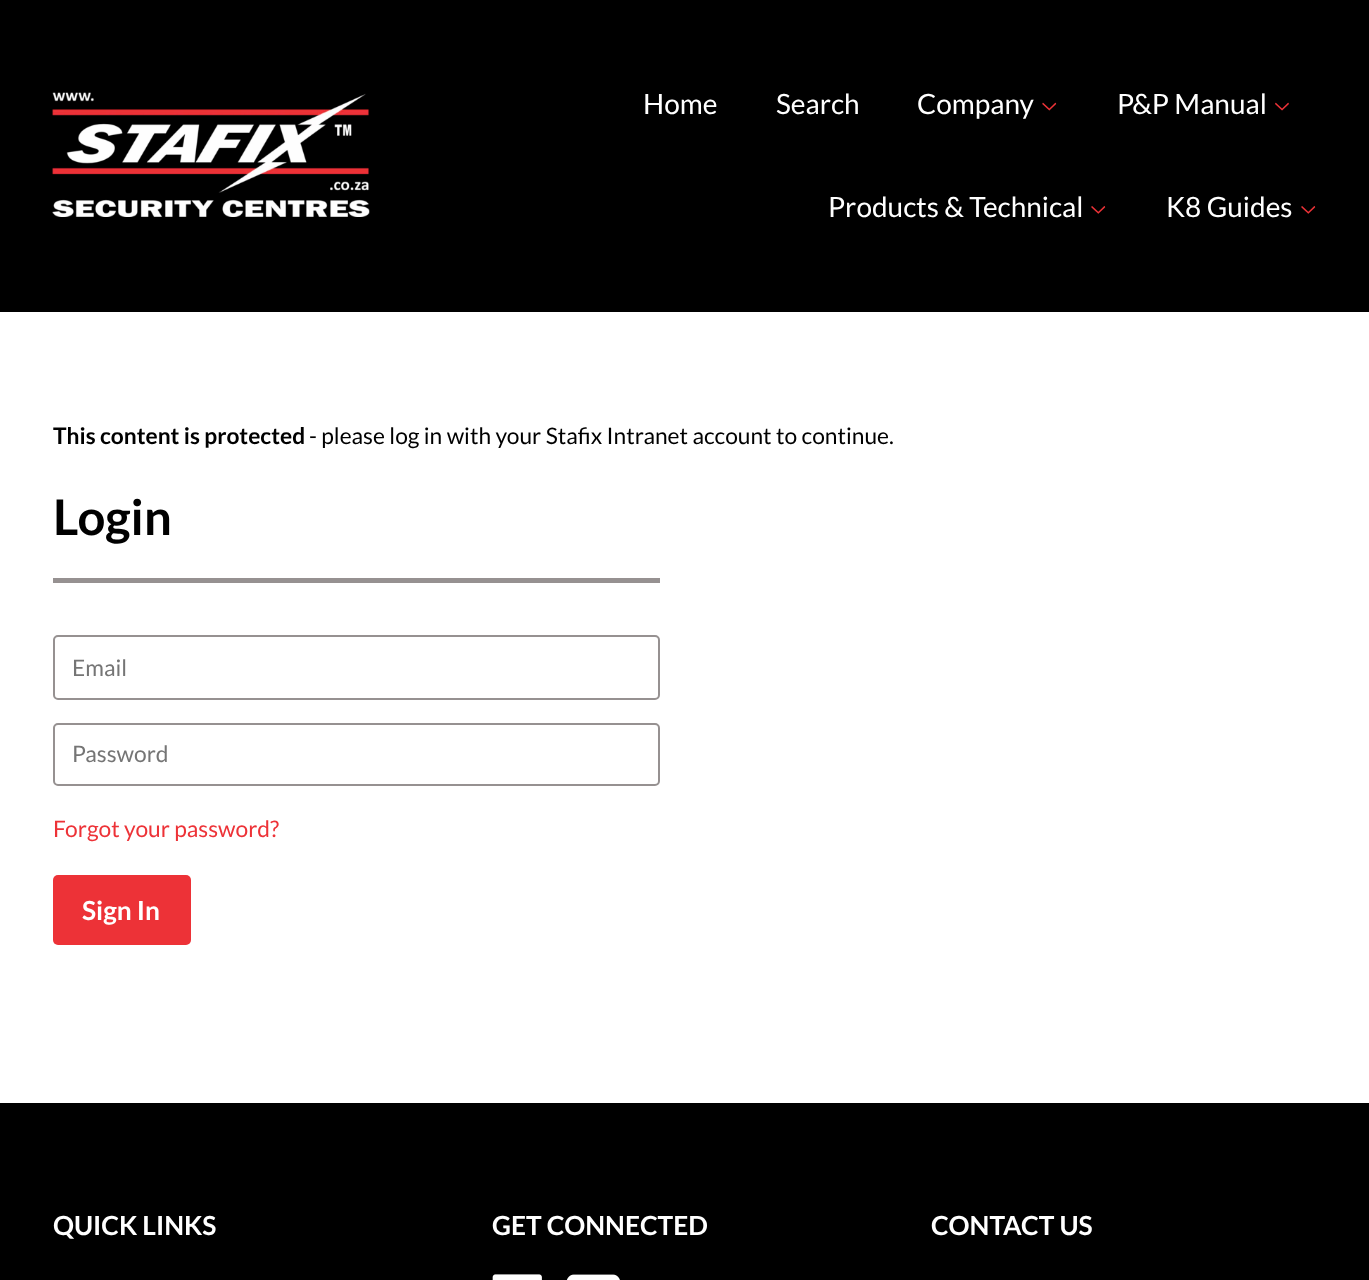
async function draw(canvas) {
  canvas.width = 1369;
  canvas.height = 1280;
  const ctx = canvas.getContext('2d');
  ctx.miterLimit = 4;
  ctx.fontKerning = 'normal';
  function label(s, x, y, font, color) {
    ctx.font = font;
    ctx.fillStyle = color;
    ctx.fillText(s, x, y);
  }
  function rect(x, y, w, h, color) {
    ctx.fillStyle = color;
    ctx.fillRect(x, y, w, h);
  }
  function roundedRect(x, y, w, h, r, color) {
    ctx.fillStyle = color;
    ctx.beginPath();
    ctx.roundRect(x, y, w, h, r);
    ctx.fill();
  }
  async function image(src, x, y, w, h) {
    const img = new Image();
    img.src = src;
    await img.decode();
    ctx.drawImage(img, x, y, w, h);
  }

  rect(0, 0, 1369, 1280, '#fff');
  rect(0, 0, 1369, 312, '#000');
  await image('assets/img1.png', 52, 92, 318, 125);
  label('Home', 643, 114, '28px Lato', '#fff');
  label('Search', 776, 114, '28px Lato', '#fff');
  label('Company', 917, 114, '28px Lato', '#fff');
  await image('assets/img2.png', 1042, 102, 15, 9);
  label('P&P Manual', 1117, 114, '28px Lato', '#fff');
  await image('assets/img3.png', 1275, 102, 14, 9);
  label('Products & Technical', 828, 217, '28px Lato', '#fff');
  await image('assets/img4.png', 1091, 206, 15, 8);
  label('K8 Guides', 1166, 217, '28px Lato', '#fff');
  await image('assets/img4.png', 1301, 206, 15, 8);
  label('This content is protected', 53, 444, 'bold 22.75px Lato', '#000');
  label('- please log in with your Stafix Intranet account to continue.', 309, 444, '22.75px Lato', '#000');
  rect(53, 578, 607, 5, '#969191');
  label('Login', 53, 535, 'bold 49px Lato', '#000');
  ctx.beginPath();
  ctx.roundRect(54, 636, 605, 63, 4);
  ctx.strokeStyle = '#969191';
  ctx.lineWidth = 2;
  ctx.stroke();
  label('Email', 72, 676, '22.75px Lato', '#757575');
  ctx.beginPath();
  ctx.roundRect(54, 724, 605, 61, 4);
  ctx.stroke();
  label('Password', 72, 762, '22.75px Lato', '#757575');
  label('Forgot your password?', 53, 837, '22.75px Lato', '#ed3237');
  roundedRect(53, 875, 138, 70, 5, '#ed3237');
  label('Sign In', 82, 920, 'bold 26.25px Lato', '#fff');
  rect(0, 1103, 1369, 177, '#000');
  label('QUICK LINKS', 53, 1235, 'bold 26.25px Lato', '#fff');
  label('GET CONNECTED', 492, 1235, 'bold 26.25px Lato', '#fff');
  await image('assets/img5.png', 492, 1274, 50, 6);
  await image('assets/img6.png', 566, 1274, 54, 6);
  label('CONTACT US', 931, 1235, 'bold 26.25px Lato', '#fff');
}

draw(document.querySelector('canvas'));
